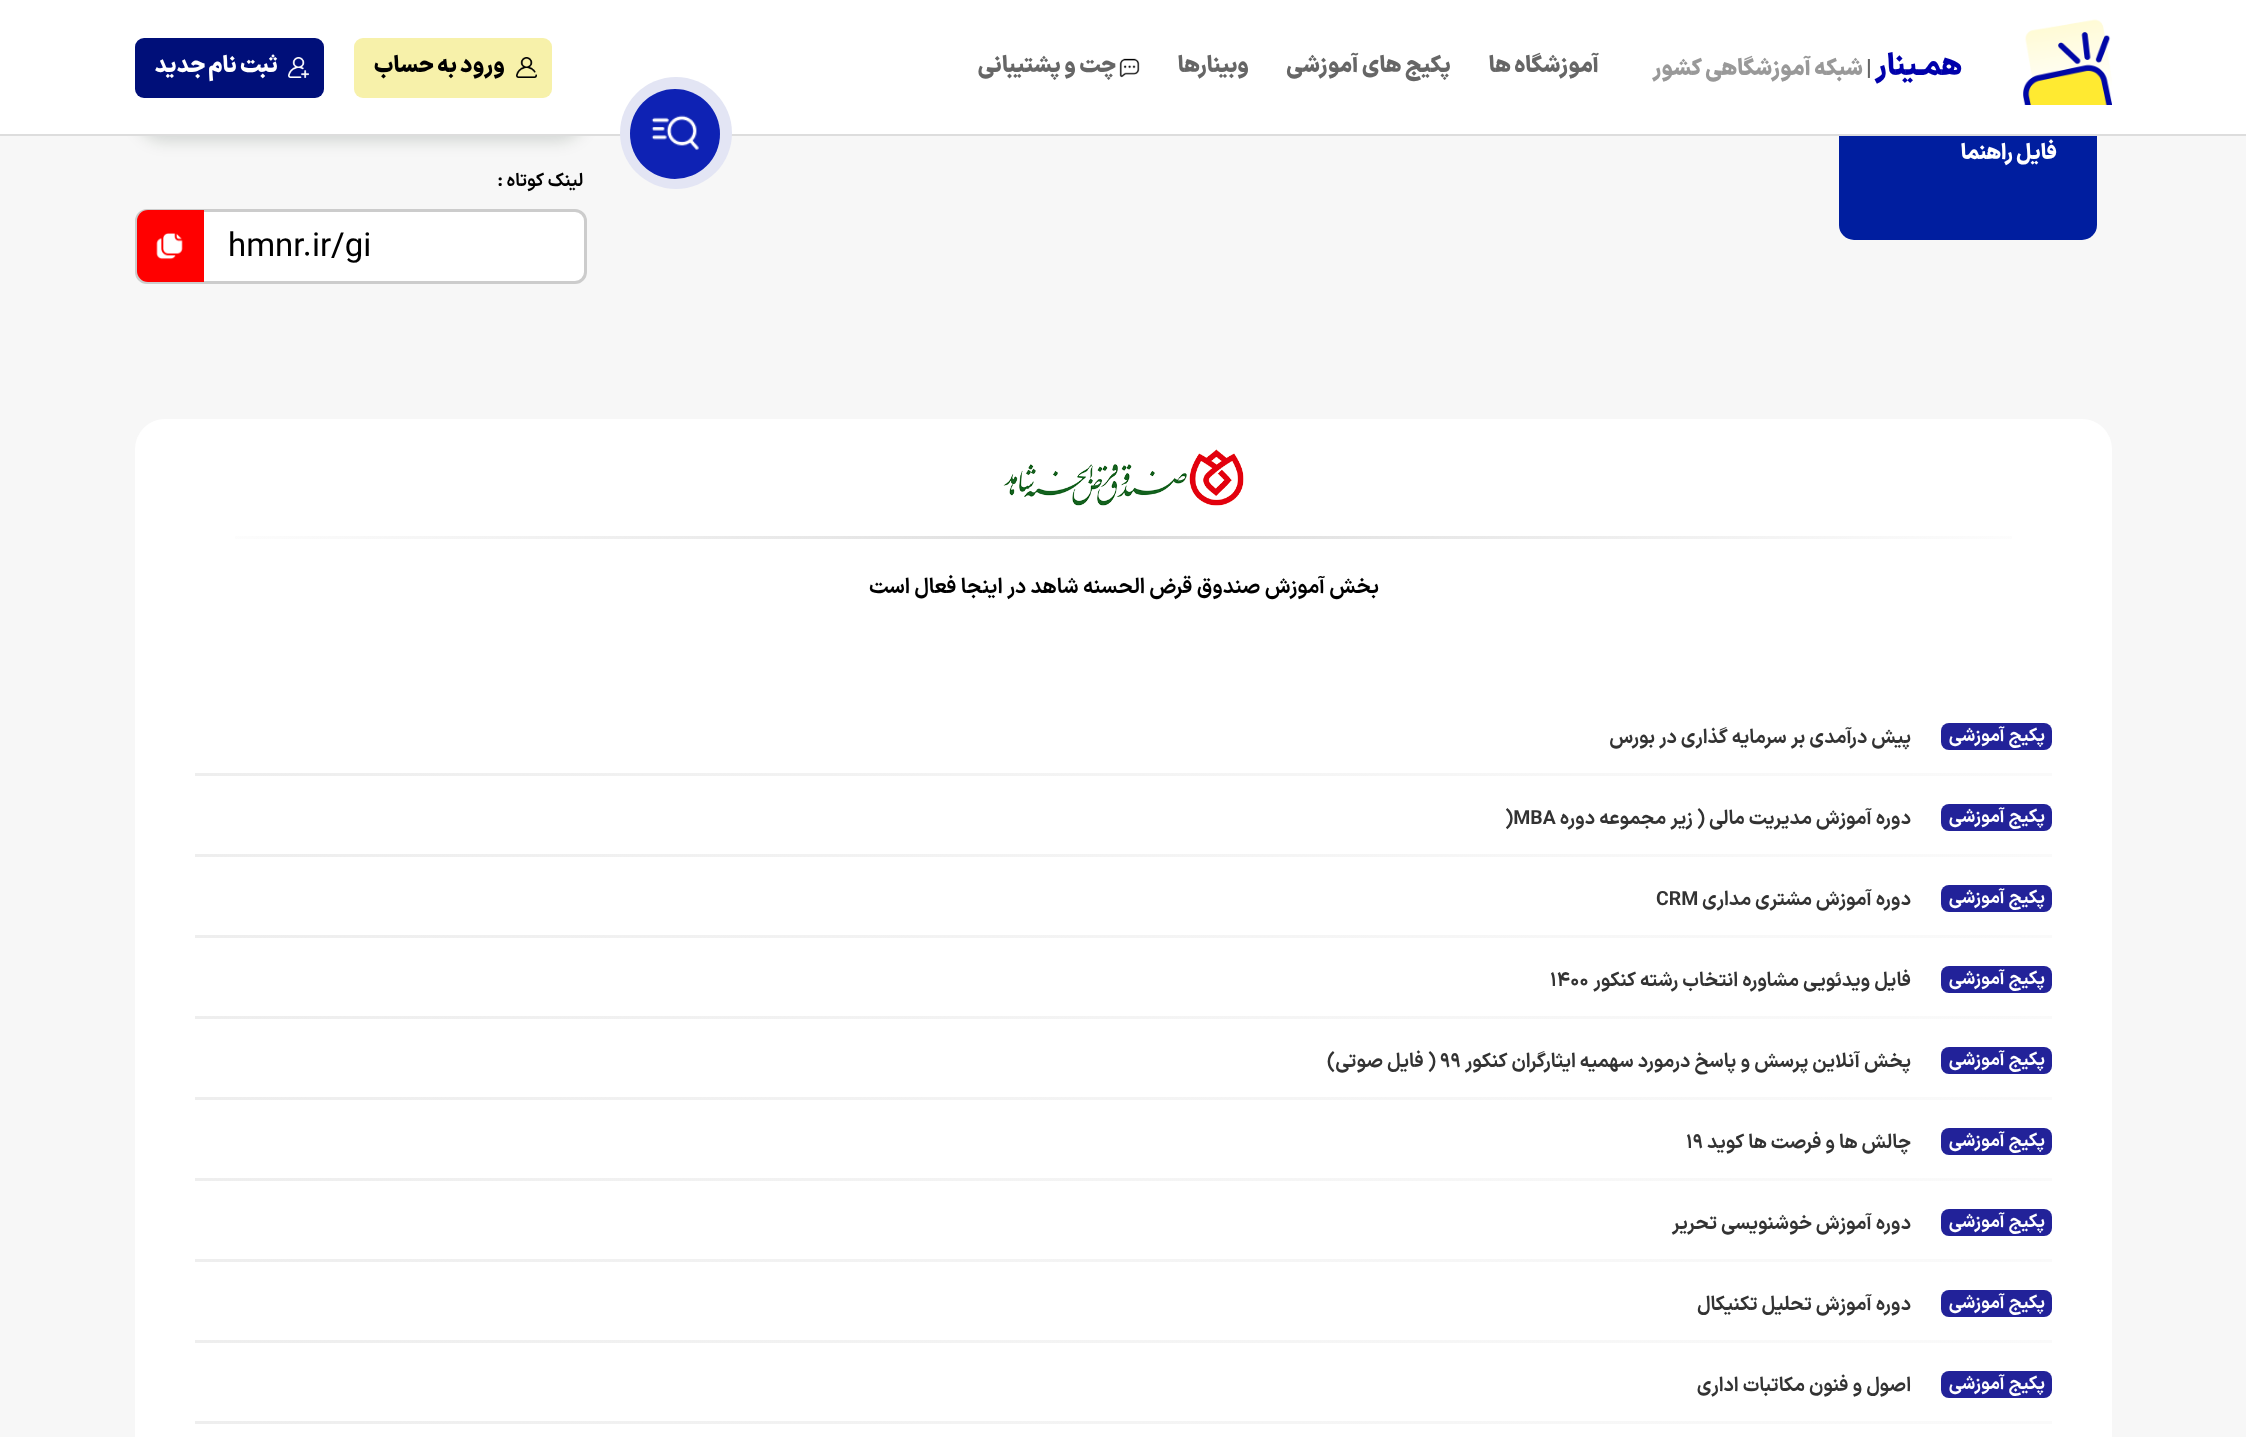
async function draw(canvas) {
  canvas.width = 2246;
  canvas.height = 1437;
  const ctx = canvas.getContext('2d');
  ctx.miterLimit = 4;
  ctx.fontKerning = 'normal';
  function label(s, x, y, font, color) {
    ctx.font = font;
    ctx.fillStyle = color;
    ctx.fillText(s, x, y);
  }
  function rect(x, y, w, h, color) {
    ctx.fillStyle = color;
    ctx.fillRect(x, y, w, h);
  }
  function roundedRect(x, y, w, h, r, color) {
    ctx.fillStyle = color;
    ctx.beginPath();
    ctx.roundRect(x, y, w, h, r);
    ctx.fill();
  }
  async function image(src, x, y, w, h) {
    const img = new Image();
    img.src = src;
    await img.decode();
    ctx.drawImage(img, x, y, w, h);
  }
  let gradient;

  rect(0, 0, 2246, 1437, '#f7f7f7');
  roundedRect(1839, -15, 258, 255, 15, '#001e9f');
  ctx.fillStyle = '#031c0926';
  ctx.filter = 'blur(8px)';
  ctx.beginPath();
  ctx.roundRect(135, -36, 452, 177, 30);
  ctx.fill();
  ctx.filter = 'none';
  rect(0, 0, 2246, 134, '#fff');
  rect(0, 134, 2246, 2, '#ddd');
  await image('assets/img1.png', 2023, 19, 89, 86);
  ctx.direction = 'rtl';
  label('همـینار', 1962, 75, '900 30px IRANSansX', '#0000ab');
  ctx.direction = 'ltr';
  label('|', 1866, 75, '900 22.5px IRANSansX', '#666');
  ctx.direction = 'rtl';
  label('شبکه آموزشگاهی کشور', 1863, 75, '900 22.5px IRANSansX', '#999');
  label('آموزشگاه ها', 1599, 72, '900 22.5px IRANSansX', '#666');
  label('پکیج های آموزشی', 1451, 72, '900 22.5px IRANSansX', '#666');
  label('وبینارها', 1249, 72, '900 22.5px IRANSansX', '#666');
  await image('assets/img2.png', 1119, 58, 21, 20);
  label('چت و پشتیبانی', 1116, 72, '900 22.5px IRANSansX', '#666');
  roundedRect(354, 38, 198, 60, 9, '#f7f1aa');
  await image('assets/img3.png', 516, 57, 21, 21);
  label('ورود به حساب', 505, 72, '900 22.5px IRANSansX', '#000');
  roundedRect(135, 38, 189, 60, 9, '#000f79');
  await image('assets/img4.png', 288, 57, 21, 21);
  label('ثبت نام جدید', 278, 72, '900 22.5px IRANSansX', '#fff');
  ctx.fillStyle = '#e3e5f4';
  ctx.beginPath();
  ctx.arc(676, 133, 56, 0, 2 * Math.PI);
  ctx.fill();
  ctx.fillStyle = '#0e22b4';
  ctx.beginPath();
  ctx.arc(675, 134, 45, 0, 2 * Math.PI);
  ctx.fill();
  await image('assets/img5.png', 651, 115, 48, 35);
  label('فایل راهنما', 2057, 159, '900 21px IRANSansX', '#fff');
  ctx.beginPath();
  ctx.roundRect(136.5, 210.5, 449, 72, 10.5);
  ctx.fill();
  ctx.strokeStyle = '#ccc';
  ctx.lineWidth = 3;
  ctx.stroke();
  label('لینک کوتاه :', 583, 186, 'bold 18px IRANSansX', '#000');
  ctx.direction = 'ltr';
  label('hmnr.ir/gi', 228, 256, '33px IRANSansX', '#000');
  ctx.fillStyle = '#f00';
  ctx.beginPath();
  ctx.roundRect(137, 210, 67, 72, [11, 0, 0, 11]);
  ctx.fill();
  await image('assets/img6.png', 156, 233, 27, 27);
  roundedRect(135, 419, 1977, 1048, 30, '#fff');
  await image('assets/img7.png', 1003, 449, 241, 57);
  gradient = ctx.createLinearGradient(165, 537, 2082, 537);
  gradient.addColorStop(0, '#fff');
  gradient.addColorStop(0.5, '#ddd');
  gradient.addColorStop(1, '#fff');
  ctx.fillStyle = gradient;
  ctx.fillRect(235, 536, 1777, 3);
  ctx.direction = 'rtl';
  label('بخش آموزش صندوق قرض الحسنه شاهد در اینجا فعال است', 1379, 593, 'bold 21px IRANSansX', '#000');
  roundedRect(1941, 723, 111, 27, 8, '#229');
  label('پکیج آموزشی', 2045, 741, 'bold 18px IRANSansX', '#fff');
  label('پیش درآمدی بر سرمایه گذاری در بورس', 1911, 743, 'bold 19.5px IRANSansX', '#333');
  gradient = ctx.createLinearGradient(195, 774, 2052, 774);
  gradient.addColorStop(0, '#eee');
  gradient.addColorStop(1, '#fafafa');
  ctx.fillStyle = gradient;
  ctx.fillRect(195, 773, 1857, 3);
  roundedRect(1941, 804, 111, 27, 8, '#229');
  label('پکیج آموزشی', 2045, 822, 'bold 18px IRANSansX', '#fff');
  label('دوره آموزش مدیریت مالی ( زیر مجموعه دوره', 1911, 824, 'bold 19.5px IRANSansX', '#333');
  ctx.direction = 'ltr';
  label(')MBA', 1505, 824, 'bold 19.5px IRANSansX', '#333');
  gradient = ctx.createLinearGradient(195, 855, 2052, 855);
  gradient.addColorStop(0, '#eee');
  gradient.addColorStop(1, '#fafafa');
  ctx.fillStyle = gradient;
  ctx.fillRect(195, 854, 1857, 3);
  roundedRect(1941, 885, 111, 27, 8, '#229');
  ctx.direction = 'rtl';
  label('پکیج آموزشی', 2045, 903, 'bold 18px IRANSansX', '#fff');
  label('دوره آموزش مشتری مداری', 1911, 905, 'bold 19.5px IRANSansX', '#333');
  ctx.direction = 'ltr';
  label('CRM', 1656, 905, 'bold 19.5px IRANSansX', '#333');
  gradient = ctx.createLinearGradient(195, 936, 2052, 936);
  gradient.addColorStop(0, '#eee');
  gradient.addColorStop(1, '#fafafa');
  ctx.fillStyle = gradient;
  ctx.fillRect(195, 935, 1857, 3);
  roundedRect(1941, 966, 111, 27, 8, '#229');
  ctx.direction = 'rtl';
  label('پکیج آموزشی', 2045, 984, 'bold 18px IRANSansX', '#fff');
  label('فایل ویدئویی مشاوره انتخاب رشته کنکور', 1911, 986, 'bold 19.5px IRANSansX', '#333');
  ctx.direction = 'ltr';
  label('1400', 1550, 986, 'bold 19.5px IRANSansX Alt', '#333');
  gradient = ctx.createLinearGradient(195, 1017, 2052, 1017);
  gradient.addColorStop(0, '#eee');
  gradient.addColorStop(1, '#fafafa');
  ctx.fillStyle = gradient;
  ctx.fillRect(195, 1016, 1857, 3);
  roundedRect(1941, 1047, 111, 27, 8, '#229');
  ctx.direction = 'rtl';
  label('پکیج آموزشی', 2045, 1065, 'bold 18px IRANSansX', '#fff');
  label('پخش آنلاین پرسش و پاسخ درمورد سهمیه ایثارگران کنکور', 1911, 1067, 'bold 19.5px IRANSansX', '#333');
  ctx.direction = 'ltr';
  label('۹۹', 1440, 1067, 'bold 19.5px IRANSansX', '#333');
  ctx.direction = 'rtl';
  label('( فایل صوتی)', 1436, 1067, 'bold 19.5px IRANSansX', '#333');
  gradient = ctx.createLinearGradient(195, 1098, 2052, 1098);
  gradient.addColorStop(0, '#eee');
  gradient.addColorStop(1, '#fafafa');
  ctx.fillStyle = gradient;
  ctx.fillRect(195, 1097, 1857, 3);
  roundedRect(1941, 1128, 111, 27, 8, '#229');
  label('پکیج آموزشی', 2045, 1146, 'bold 18px IRANSansX', '#fff');
  label('چالش ها و فرصت ها کوید', 1911, 1148, 'bold 19.5px IRANSansX', '#333');
  ctx.direction = 'ltr';
  label('19', 1686, 1148, 'bold 19.5px IRANSansX Alt', '#333');
  gradient = ctx.createLinearGradient(195, 1179, 2052, 1179);
  gradient.addColorStop(0, '#eee');
  gradient.addColorStop(1, '#fafafa');
  ctx.fillStyle = gradient;
  ctx.fillRect(195, 1178, 1857, 3);
  roundedRect(1941, 1209, 111, 27, 8, '#229');
  ctx.direction = 'rtl';
  label('پکیج آموزشی', 2045, 1227, 'bold 18px IRANSansX', '#fff');
  label('دوره آموزش خوشنویسی تحریر', 1911, 1229, 'bold 19.5px IRANSansX', '#333');
  gradient = ctx.createLinearGradient(195, 1260, 2052, 1260);
  gradient.addColorStop(0, '#eee');
  gradient.addColorStop(1, '#fafafa');
  ctx.fillStyle = gradient;
  ctx.fillRect(195, 1259, 1857, 3);
  roundedRect(1941, 1290, 111, 27, 8, '#229');
  label('پکیج آموزشی', 2045, 1308, 'bold 18px IRANSansX', '#fff');
  label('دوره آموزش تحلیل تکنیکال', 1911, 1310, 'bold 19.5px IRANSansX', '#333');
  gradient = ctx.createLinearGradient(195, 1341, 2052, 1341);
  gradient.addColorStop(0, '#eee');
  gradient.addColorStop(1, '#fafafa');
  ctx.fillStyle = gradient;
  ctx.fillRect(195, 1340, 1857, 3);
  roundedRect(1941, 1371, 111, 27, 8, '#229');
  label('پکیج آموزشی', 2045, 1389, 'bold 18px IRANSansX', '#fff');
  label('اصول و فنون مکاتبات اداری', 1911, 1391, 'bold 19.5px IRANSansX', '#333');
  gradient = ctx.createLinearGradient(195, 1422, 2052, 1422);
  gradient.addColorStop(0, '#eee');
  gradient.addColorStop(1, '#fafafa');
  ctx.fillStyle = gradient;
  ctx.fillRect(195, 1421, 1857, 3);
}

draw(document.querySelector('canvas'));
